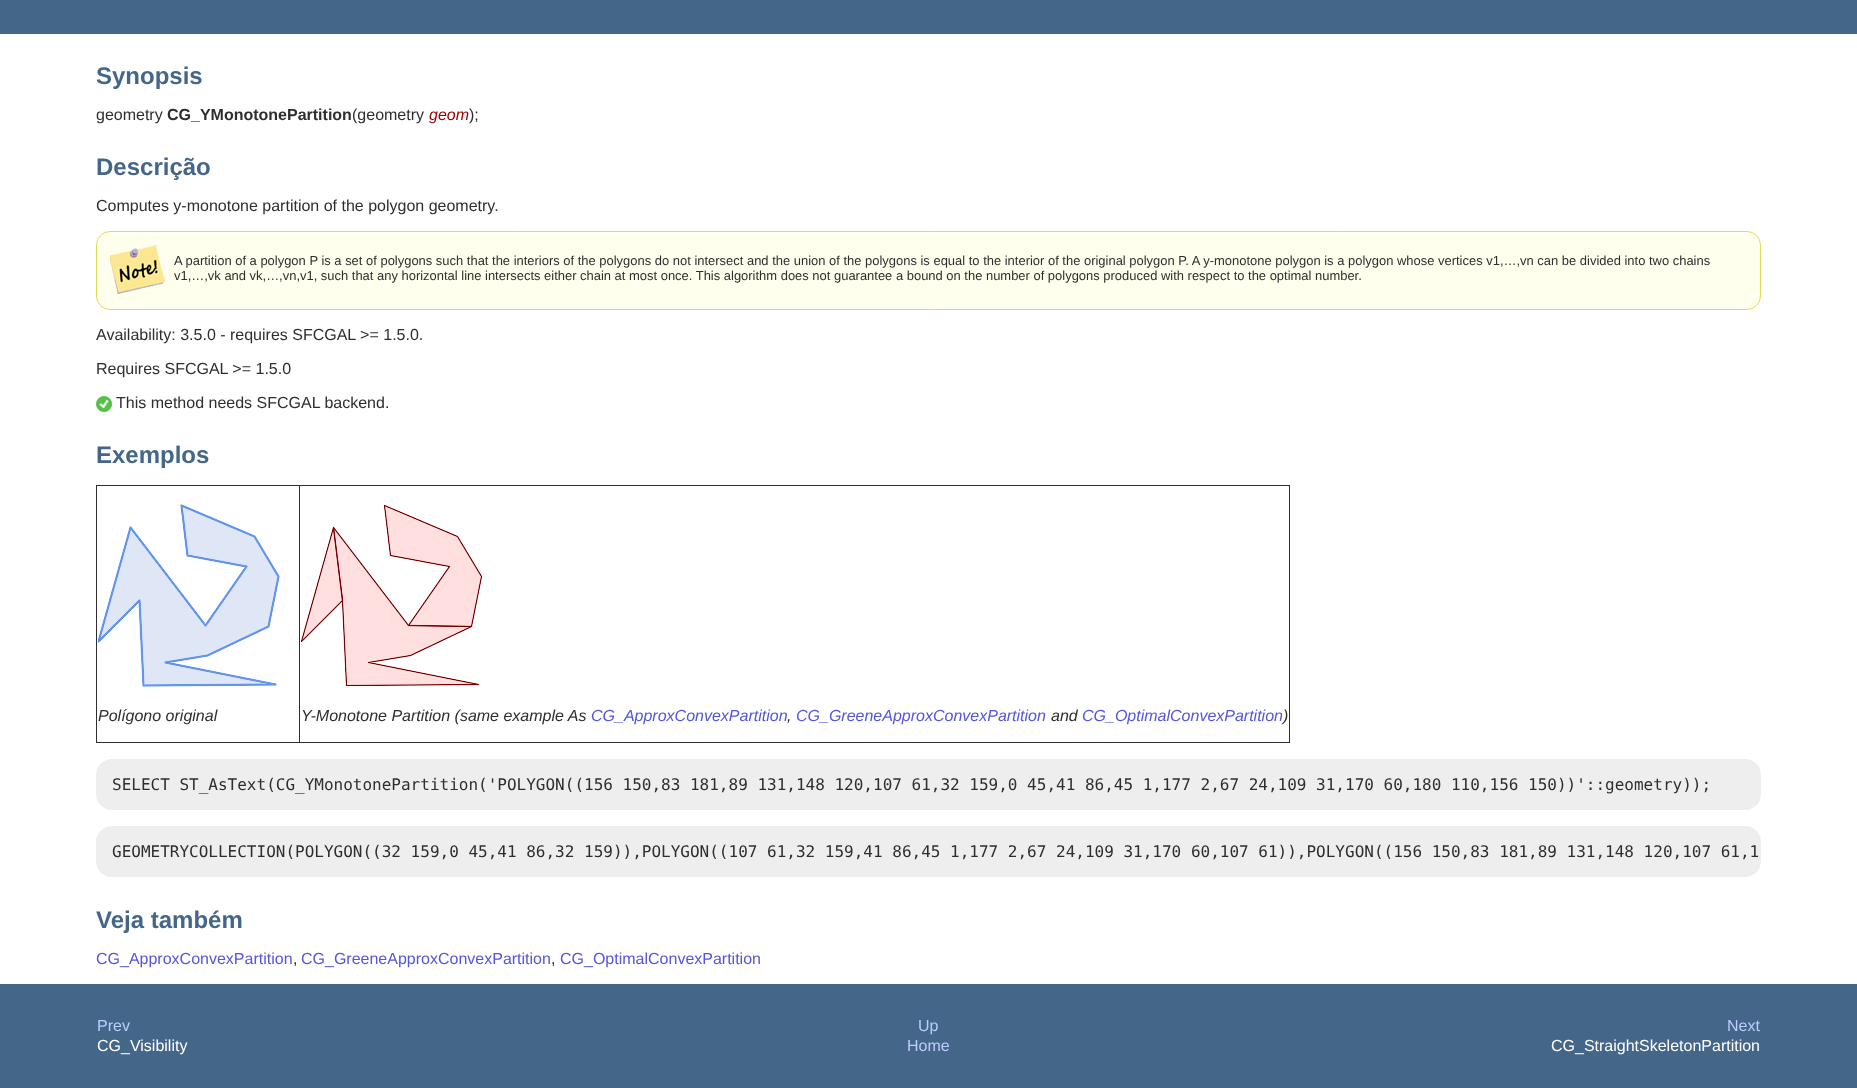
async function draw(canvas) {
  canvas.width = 1857;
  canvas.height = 1088;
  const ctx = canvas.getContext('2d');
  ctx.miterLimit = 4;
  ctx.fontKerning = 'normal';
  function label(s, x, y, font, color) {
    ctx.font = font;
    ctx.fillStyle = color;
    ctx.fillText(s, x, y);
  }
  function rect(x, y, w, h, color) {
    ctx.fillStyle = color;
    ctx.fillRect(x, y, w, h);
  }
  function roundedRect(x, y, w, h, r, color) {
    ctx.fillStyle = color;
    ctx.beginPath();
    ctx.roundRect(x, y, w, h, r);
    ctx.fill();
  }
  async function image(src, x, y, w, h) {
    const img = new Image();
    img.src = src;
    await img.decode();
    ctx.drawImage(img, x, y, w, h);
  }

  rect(0, 0, 1857, 1088, '#fff');
  rect(0, 0, 1857, 34, '#468');
  label('Synopsis', 96, 84, 'bold 24px Liberation Sans', '#468');
  label('geometry', 96, 120, '16px Liberation Sans', '#2e2e2e');
  label('CG_YMonotonePartition', 167, 120, 'bold 16px Liberation Sans', '#2e2e2e');
  label('(geometry', 352, 120, '16px Liberation Sans', '#2e2e2e');
  label('geom', 429, 120, 'italic 16px Liberation Sans', '#900');
  label(');', 469, 120, '16px Liberation Sans', '#2e2e2e');
  label('Descrição', 96, 175, 'bold 24px Liberation Sans', '#468');
  label('Computes y-monotone partition of the polygon geometry.', 96, 211, '16px Liberation Sans', '#2e2e2e');
  ctx.fillStyle = '#ffe';
  ctx.beginPath();
  ctx.roundRect(96.5, 231.5, 1664, 78, 13.5);
  ctx.fill();
  ctx.strokeStyle = '#dd5';
  ctx.stroke();
  await image('assets/img1.png', 110, 245, 55, 49);
  label('A partition of a polygon P is a set of polygons such that the interiors of the polygons do not intersect and the union of the polygons is equal to the interior of the original polygon P. A y-monotone polygon is a polygon whose vertices v1,…,vn can be divided into two chains', 174, 265, '12.96px Liberation Sans', '#2e2e2e');
  label('v1,…,vk and vk,…,vn,v1, such that any horizontal line intersects either chain at most once. This algorithm does not guarantee a bound on the number of polygons produced with respect to the optimal number.', 174, 280, '12.96px Liberation Sans', '#2e2e2e');
  label('Availability: 3.5.0 - requires SFCGAL >= 1.5.0.', 96, 340, '16px Liberation Sans', '#2e2e2e');
  label('Requires SFCGAL >= 1.5.0', 96, 374, '16px Liberation Sans', '#2e2e2e');
  await image('assets/img2.png', 96, 396, 16, 16);
  label('This method needs SFCGAL backend.', 116, 408, '16px Liberation Sans', '#2e2e2e');
  label('Exemplos', 96, 463, 'bold 24px Liberation Sans', '#468');
  rect(96, 485, 1194, 1, '#2e2e2e');
  rect(1289, 485, 1, 258, '#2e2e2e');
  rect(96, 742, 1194, 1, '#2e2e2e');
  rect(96, 485, 1, 258, '#2e2e2e');
  rect(299, 485, 1, 258, '#2e2e2e');
  await image('assets/img3.png', 98, 504, 182, 183);
  label('Polígono original', 98, 721, 'italic 16px Liberation Sans', '#2e2e2e');
  await image('assets/img4.png', 301, 504, 182, 182);
  label('Y-Monotone Partition (same example As', 301, 721, 'italic 16px Liberation Sans', '#2e2e2e');
  label('CG_ApproxConvexPartition', 591, 721, 'italic 16px Liberation Sans', '#55d');
  label(',', 787, 721, 'italic 16px Liberation Sans', '#2e2e2e');
  label('CG_GreeneApproxConvexPartition', 796, 721, 'italic 16px Liberation Sans', '#55d');
  label('and', 1051, 721, 'italic 16px Liberation Sans', '#2e2e2e');
  label('CG_OptimalConvexPartition', 1082, 721, 'italic 16px Liberation Sans', '#55d');
  label(')', 1283, 721, 'italic 16px Liberation Sans', '#2e2e2e');
  roundedRect(96, 759, 1665, 51, 16, '#eee');
  label('SELECT ST_AsText(CG_YMonotonePartition(\'POLYGON((156 150,83 181,89 131,148 120,107 61,32 159,0 45,41 86,45 1,177 2,67 24,109 31,170 60,180 110,156 150))\'::geometry));', 112, 790, '16px DejaVu Sans Mono', '#2e2e2e');
  roundedRect(96, 826, 1665, 51, 16, '#eee');
  label('GEOMETRYCOLLECTION(POLYGON((32 159,0 45,41 86,32 159)),POLYGON((107 61,32 159,41 86,45 1,177 2,67 24,109 31,170 60,107 61)),POLYGON((156 150,83 181,89 131,148 120,107 61,1', 112, 857, '16px DejaVu Sans Mono', '#2e2e2e');
  label('Veja também', 96, 928, 'bold 24px Liberation Sans', '#468');
  label('CG_ApproxConvexPartition', 96, 964, '16px Liberation Sans', '#55d');
  label(',', 293, 964, '16px Liberation Sans', '#2e2e2e');
  label('CG_GreeneApproxConvexPartition', 301, 964, '16px Liberation Sans', '#55d');
  label(',', 551, 964, '16px Liberation Sans', '#2e2e2e');
  label('CG_OptimalConvexPartition', 560, 964, '16px Liberation Sans', '#55d');
  rect(0, 984, 1857, 104, '#468');
  label('Prev', 97, 1031, '16px Liberation Sans', '#bcf');
  label('Up', 918, 1031, '16px Liberation Sans', '#bcf');
  label('Next', 1727, 1031, '16px Liberation Sans', '#bcf');
  label('CG_Visibility', 97, 1051, '16px Liberation Sans', '#fff');
  label('Home', 907, 1051, '16px Liberation Sans', '#bcf');
  label('CG_StraightSkeletonPartition', 1551, 1051, '16px Liberation Sans', '#fff');
}

draw(document.querySelector('canvas'));
